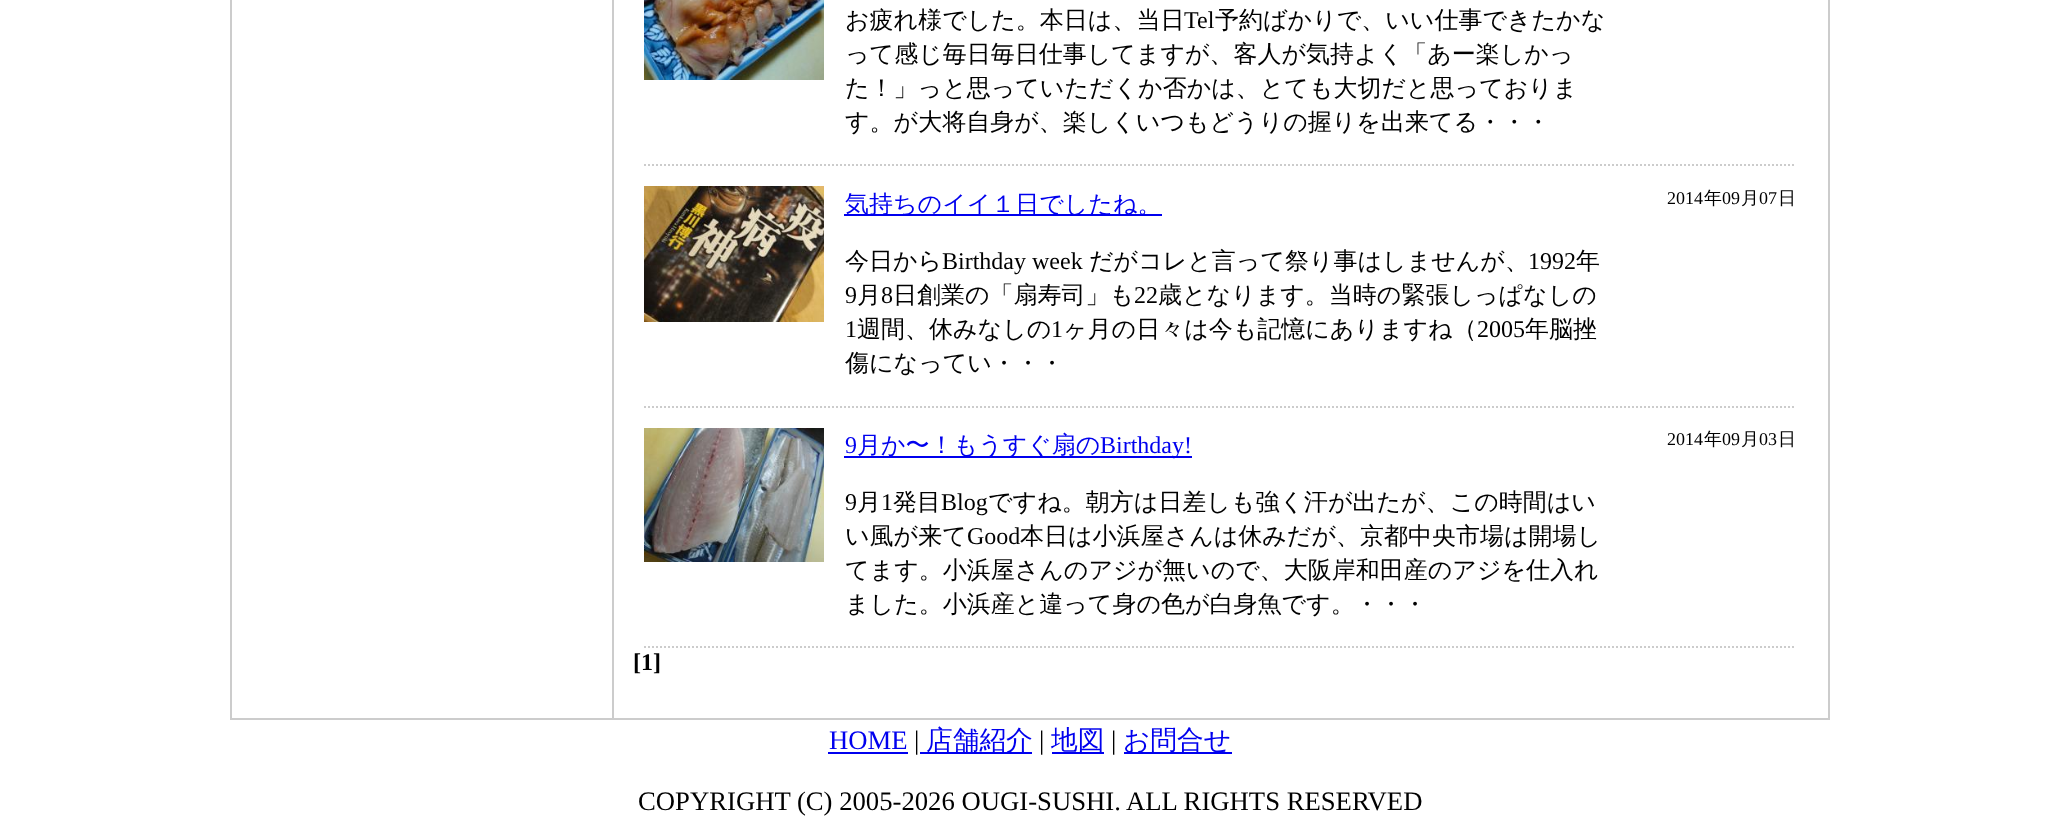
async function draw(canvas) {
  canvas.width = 2060;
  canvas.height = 819;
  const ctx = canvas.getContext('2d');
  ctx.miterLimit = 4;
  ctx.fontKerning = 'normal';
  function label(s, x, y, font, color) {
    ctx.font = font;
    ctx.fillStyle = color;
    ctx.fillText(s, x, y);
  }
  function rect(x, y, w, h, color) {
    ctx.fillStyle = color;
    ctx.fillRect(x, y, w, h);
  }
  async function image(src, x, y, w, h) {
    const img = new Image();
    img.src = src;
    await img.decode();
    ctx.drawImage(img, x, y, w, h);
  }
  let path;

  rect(0, 0, 2060, 819, '#fff');
  rect(230, 718, 382, 2, '#ccc');
  rect(230, 0, 2, 720, '#ccc');
  rect(1828, 0, 2, 720, '#ccc');
  rect(612, 718, 1218, 2, '#ccc');
  rect(612, 0, 2, 720, '#ccc');
  path = new Path2D('M644 165H1796');
  ctx.strokeStyle = '#ccc';
  ctx.lineWidth = 2;
  ctx.setLineDash([2, 2]);
  ctx.stroke(path);
  await image('assets/img1.png', 644, 0, 180, 80);
  label('お疲れ様でした。本日は、当日', 845, 28, '500 24px WenQuanYi Zen Hei', '#000');
  label('Tel', 1184, 28, '24px Liberation Serif', '#000');
  label('予約ばかりで、いい仕事できたかな', 1215, 28, '500 24px WenQuanYi Zen Hei', '#000');
  label('って感じ毎日毎日仕事してますが、客人が気持よく「あー楽しかっ', 845, 62, '500 24px WenQuanYi Zen Hei', '#000');
  label('た！」っと思っていただくか否かは、とても大切だと思っておりま', 845, 96, '500 24px WenQuanYi Zen Hei', '#000');
  label('す。が大将自身が、楽しくいつもどうりの握りを出来てる・・・', 845, 130, '500 24px WenQuanYi Zen Hei', '#000');
  path = new Path2D('M644 407H1796');
  ctx.stroke(path);
  await image('assets/img2.png', 644, 186, 180, 136);
  rect(844, 214, 318, 2, '#00e');
  label('気持ちのイイ１日でしたね。', 845, 212, '500 24px WenQuanYi Zen Hei', '#00e');
  label('今日から', 845, 269, '500 24px WenQuanYi Zen Hei', '#000');
  label('Birthday week', 942, 269, '24px Liberation Serif', '#000');
  label('だがコレと言って祭り事はしませんが、', 1089, 269, '500 24px WenQuanYi Zen Hei', '#000');
  label('1992', 1528, 269, '24px Liberation Serif', '#000');
  label('年', 1576, 269, '500 24px WenQuanYi Zen Hei', '#000');
  label('9', 845, 303, '24px Liberation Serif', '#000');
  label('月', 857, 303, '500 24px WenQuanYi Zen Hei', '#000');
  label('8', 881, 303, '24px Liberation Serif', '#000');
  label('日創業の「扇寿司」も', 893, 303, '500 24px WenQuanYi Zen Hei', '#000');
  label('22', 1134, 303, '24px Liberation Serif', '#000');
  label('歳となります。当時の緊張しっぱなしの', 1158, 303, '500 24px WenQuanYi Zen Hei', '#000');
  label('1', 845, 337, '24px Liberation Serif', '#000');
  label('週間、休みなしの', 857, 337, '500 24px WenQuanYi Zen Hei', '#000');
  label('1', 1051, 337, '24px Liberation Serif', '#000');
  label('ヶ月の日々は今も記憶にありますね（', 1063, 337, '500 24px WenQuanYi Zen Hei', '#000');
  label('2005', 1477, 337, '24px Liberation Serif', '#000');
  label('年脳挫', 1525, 337, '500 24px WenQuanYi Zen Hei', '#000');
  label('傷になってい・・・', 845, 371, '500 24px WenQuanYi Zen Hei', '#000');
  label('2014', 1667, 204, '18px Liberation Serif', '#000');
  label('年', 1704, 204, '500 18px WenQuanYi Zen Hei', '#000');
  label('09', 1722, 204, '18px Liberation Serif', '#000');
  label('月', 1741, 204, '500 18px WenQuanYi Zen Hei', '#000');
  label('07', 1759, 204, '18px Liberation Serif', '#000');
  label('日', 1778, 204, '500 18px WenQuanYi Zen Hei', '#000');
  path = new Path2D('M644 647H1796');
  ctx.stroke(path);
  await image('assets/img3.png', 644, 428, 180, 134);
  label('9', 845, 453, '24px Liberation Serif', '#00e');
  rect(844, 456, 348, 2, '#00e');
  label('月か〜！もうすぐ扇の', 857, 453, '500 24px WenQuanYi Zen Hei', '#00e');
  label('Birthday!', 1100, 453, '24px Liberation Serif', '#00e');
  label('9', 845, 510, '24px Liberation Serif', '#000');
  label('月', 857, 510, '500 24px WenQuanYi Zen Hei', '#000');
  label('1', 881, 510, '24px Liberation Serif', '#000');
  label('発目', 893, 510, '500 24px WenQuanYi Zen Hei', '#000');
  label('Blog', 941, 510, '24px Liberation Serif', '#000');
  label('ですね。朝方は日差しも強く汗が出たが、この時間はい', 988, 510, '500 24px WenQuanYi Zen Hei', '#000');
  label('い風が来て', 845, 544, '500 24px WenQuanYi Zen Hei', '#000');
  label('Good', 967, 544, '24px Liberation Serif', '#000');
  label('本日は小浜屋さんは休みだが、京都中央市場は開場し', 1020, 544, '500 24px WenQuanYi Zen Hei', '#000');
  label('てます。小浜屋さんのアジが無いので、大阪岸和田産のアジを仕入れ', 845, 578, '500 24px WenQuanYi Zen Hei', '#000');
  label('ました。小浜産と違って身の色が白身魚です。・・・', 845, 612, '500 24px WenQuanYi Zen Hei', '#000');
  label('2014', 1667, 445, '18px Liberation Serif', '#000');
  label('年', 1704, 445, '500 18px WenQuanYi Zen Hei', '#000');
  label('09', 1722, 445, '18px Liberation Serif', '#000');
  label('月', 1741, 445, '500 18px WenQuanYi Zen Hei', '#000');
  label('03', 1759, 445, '18px Liberation Serif', '#000');
  label('日', 1778, 445, '500 18px WenQuanYi Zen Hei', '#000');
  label('[1]', 633, 670, 'bold 24px Liberation Serif', '#000');
  label('HOME', 829, 749, '26.7px Liberation Serif', '#00e');
  rect(828, 752, 80, 2, '#00e');
  label('|', 914, 749, '26.7px Liberation Serif', '#000');
  rect(920, 752, 112, 2, '#00e');
  label('店舗紹介', 926, 749, '500 26.7px WenQuanYi Zen Hei', '#00e');
  label('|', 1039, 749, '26.7px Liberation Serif', '#000');
  rect(1052, 752, 52, 2, '#00e');
  label('地図', 1051, 749, '500 26.7px WenQuanYi Zen Hei', '#00e');
  label('|', 1111, 749, '26.7px Liberation Serif', '#000');
  rect(1124, 752, 108, 2, '#00e');
  label('お問合せ', 1123, 749, '500 26.7px WenQuanYi Zen Hei', '#00e');
  label('COPYRIGHT (C) 2005-2026 OUGI-SUSHI. ALL RIGHTS RESERVED', 638, 810, '26.7px Liberation Serif', '#000');
}

draw(document.querySelector('canvas'));
